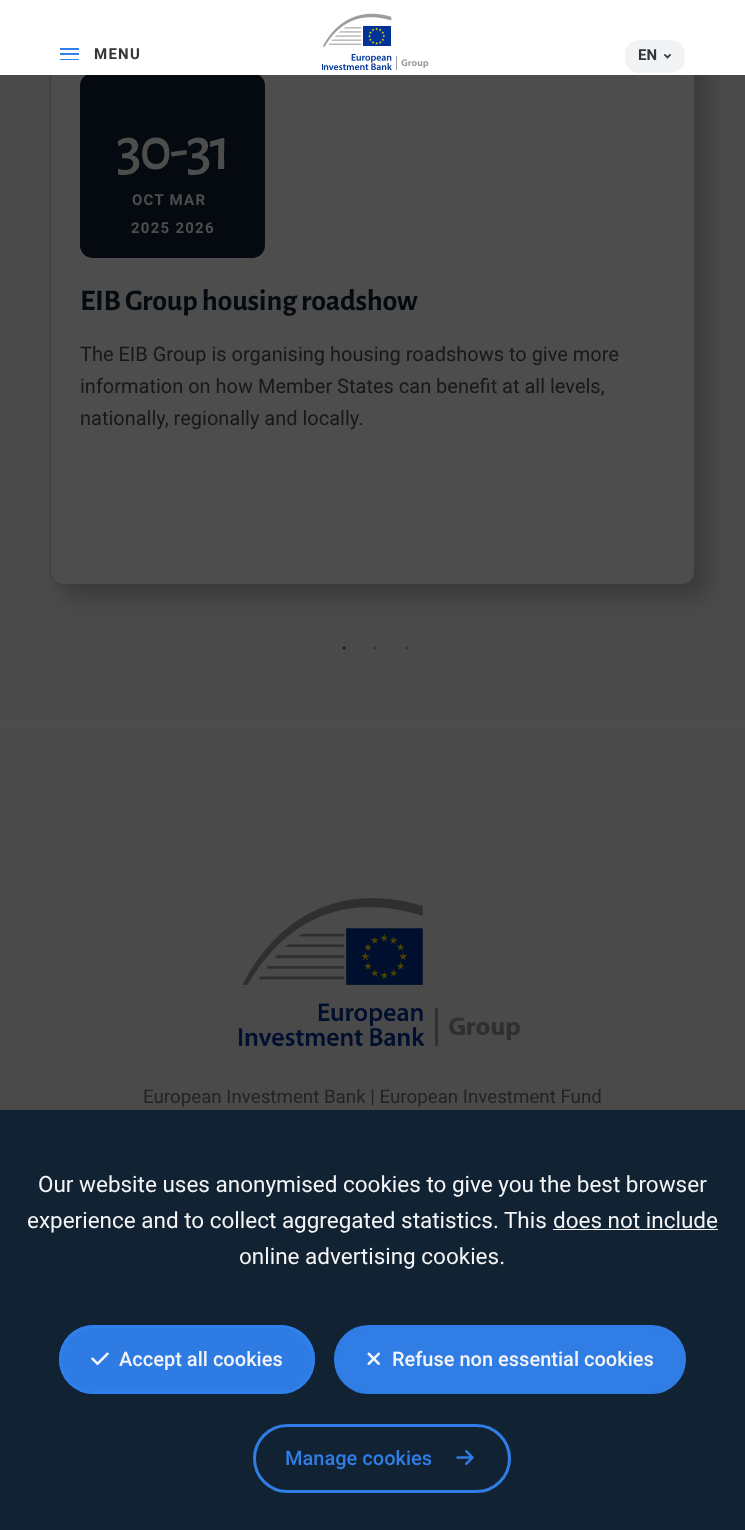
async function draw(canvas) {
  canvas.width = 745;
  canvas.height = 1530;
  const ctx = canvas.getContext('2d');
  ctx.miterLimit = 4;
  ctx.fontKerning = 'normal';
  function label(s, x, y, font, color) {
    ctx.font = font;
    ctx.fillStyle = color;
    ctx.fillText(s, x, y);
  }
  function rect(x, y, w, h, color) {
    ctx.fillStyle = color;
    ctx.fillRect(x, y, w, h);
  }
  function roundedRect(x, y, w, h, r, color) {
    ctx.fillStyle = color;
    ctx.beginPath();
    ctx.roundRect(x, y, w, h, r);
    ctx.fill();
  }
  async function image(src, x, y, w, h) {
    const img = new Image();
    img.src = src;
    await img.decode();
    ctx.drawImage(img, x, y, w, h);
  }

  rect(0, 0, 745, 1530, '#4d4d4d');
  rect(0, 75, 745, 646, '#4a4a4a');
  ctx.fillStyle = '#00000033';
  ctx.filter = 'blur(9.5px)';
  ctx.beginPath();
  ctx.roundRect(63, 48, 645, 550, 13);
  ctx.fill();
  ctx.filter = 'none';
  ctx.fillStyle = '#4d4d4d';
  ctx.beginPath();
  ctx.roundRect(50.5, 35.5, 644, 549, 12.5);
  ctx.fill();
  ctx.strokeStyle = '#3d3d3d';
  ctx.stroke();
  roundedRect(80, 73, 185, 185, 13, '#040a0f');
  rect(0, 0, 745, 75, '#fff');
  rect(60, 48, 19, 2, '#2f80ed');
  ctx.letterSpacing = '1.25px';
  label('MENU', 94, 59, 'bold 15px Roboto', '#333537');
  rect(60, 53, 19, 2, '#2f80ed');
  rect(60, 59, 19, 1, '#2f80ed');
  await image('assets/img1.png', 322, 13, 107, 57);
  ctx.fillStyle = '#f1f3f5';
  ctx.beginPath();
  ctx.roundRect(625.5, 40.5, 59, 32, 13.5);
  ctx.fill();
  ctx.strokeStyle = '#f1f3f5';
  ctx.stroke();
  ctx.letterSpacing = '0px';
  label('EN', 638, 60, 'bold 15px Roboto', '#333537');
  await image('assets/img2.png', 664, 54, 7, 5);
  ctx.letterSpacing = '-2.5px';
  label('30-31', 116, 169, '500 62px Alegreya Sans', '#4d4d4d');
  ctx.letterSpacing = '1.25px';
  label('OCT MAR', 132, 205, 'bold 15px Roboto', '#4d4d4d');
  label('2025 2026', 131, 233, 'bold 15px Roboto', '#4d4d4d');
  ctx.letterSpacing = '-0.25px';
  label('EIB Group housing roadshow', 80, 310, 'bold 30px Alegreya Sans', '#040a0f');
  ctx.letterSpacing = '0px';
  label('The EIB Group is organising housing roadshows to give more', 80, 361, '20px Roboto', '#181818');
  label('information on how Member States can benefit at all levels,', 80, 393, '20px Roboto', '#181818');
  label('nationally, regionally and locally.', 80, 425, '20px Roboto', '#181818');
  label('•', 342, 652, '12px Liberation Serif', '#00192f');
  label('•', 373, 652, '12px Liberation Serif', '#333537');
  label('•', 405, 652, '12px Liberation Serif', '#333537');
  rect(0, 729, 745, 381, '#4a4a4a');
  rect(0, 1110, 745, 420, '#112232');
  await image('assets/img3.png', 238, 898, 283, 148);
  label('European Investment Bank | European Investment Fund', 143, 1103, '18.75px Roboto', '#232323');
  label('Our website uses anonymised cookies to give you the best browser', 38, 1192, '22.5px Roboto', '#f3f4f5');
  label('experience and to collect aggregated statistics. This', 27, 1228, '22.5px Roboto', '#f3f4f5');
  label('does not include', 553, 1228, '22.5px Roboto', '#f3f4f5');
  rect(553, 1229, 165, 1, '#f6f6f6');
  label('online advertising cookies.', 239, 1264, '22.5px Roboto', '#f3f4f5');
  roundedRect(59, 1325, 256, 69, 34.5, '#2d7be3');
  ctx.beginPath();
  ctx.roundRect(60.5, 1326.5, 253, 66, 33);
  ctx.strokeStyle = '#2f80edf2';
  ctx.lineWidth = 3;
  ctx.stroke();
  await image('assets/img4.png', 91, 1352, 18, 13);
  label('Accept all cookies', 119, 1366, '500 20px Roboto', '#f3f4f5');
  ctx.fillStyle = '#307de5';
  ctx.beginPath();
  ctx.roundRect(335.5, 1326.5, 349, 66, 33);
  ctx.fill();
  ctx.strokeStyle = '#307de5';
  ctx.stroke();
  await image('assets/img5.png', 367, 1352, 13, 13);
  label('Refuse non essential cookies', 392, 1366, '500 20px Roboto', '#f3f4f5');
  ctx.beginPath();
  ctx.roundRect(254.5, 1425.5, 255, 66, 33);
  ctx.stroke();
  label('Manage cookies', 285, 1465, '500 20px Roboto', '#307de5');
  await image('assets/img6.png', 456, 1450, 18, 15);
}

draw(document.querySelector('canvas'));
